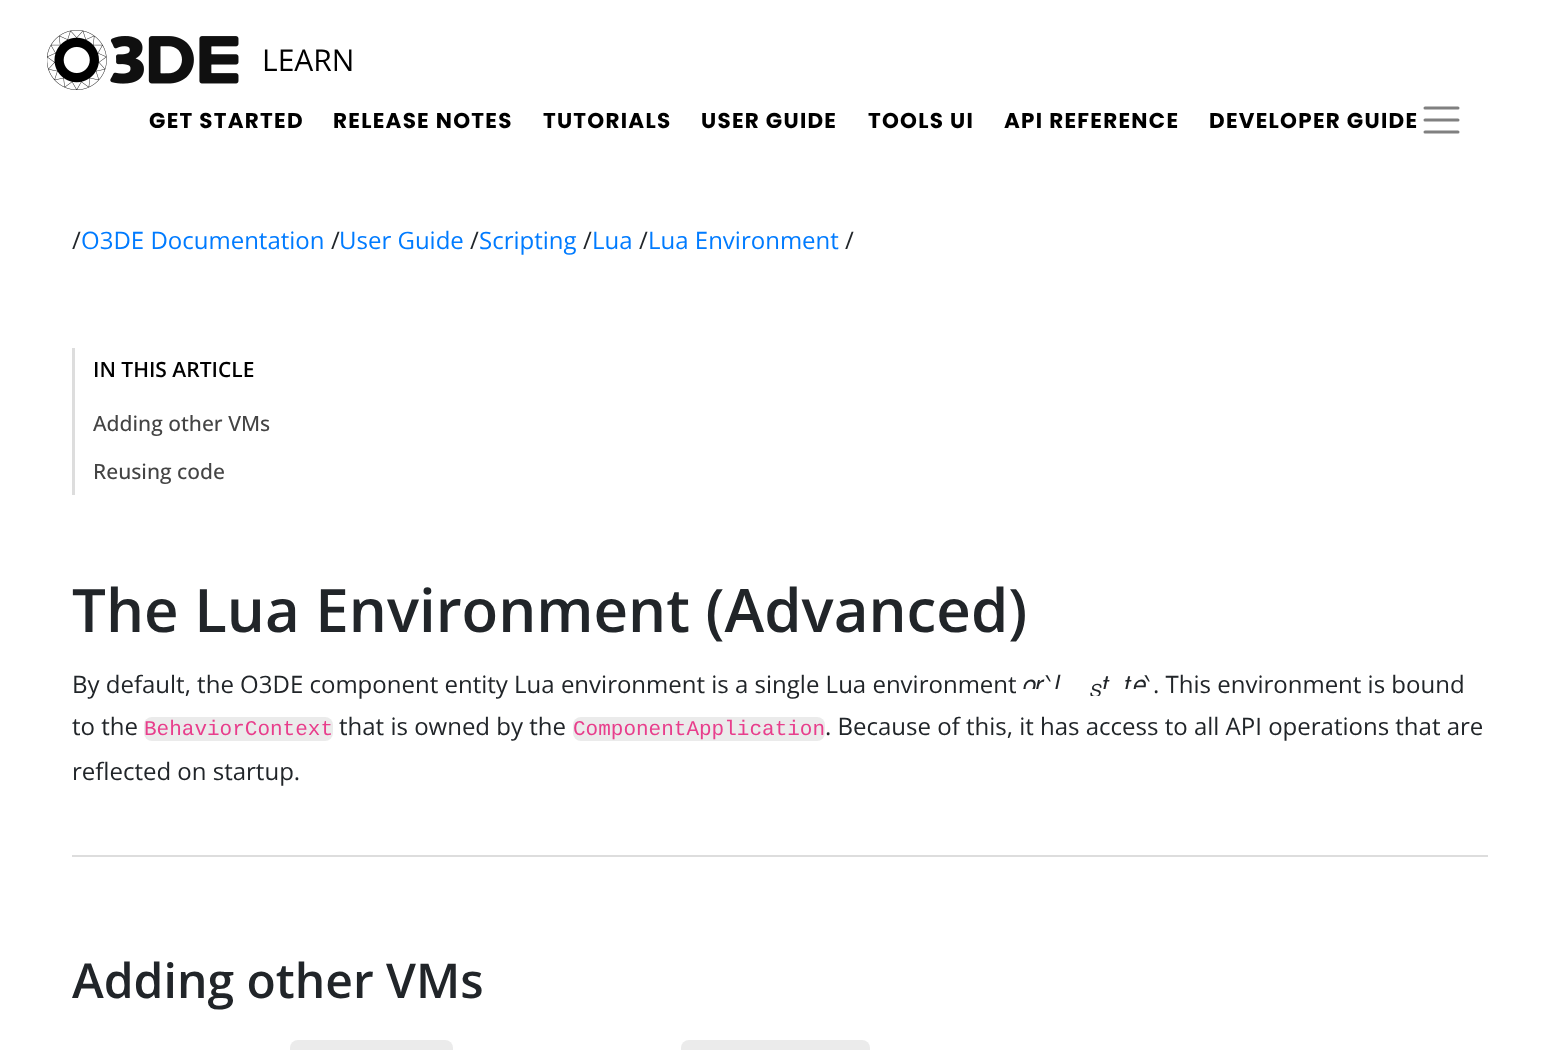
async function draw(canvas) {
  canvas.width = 1559;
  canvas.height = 1050;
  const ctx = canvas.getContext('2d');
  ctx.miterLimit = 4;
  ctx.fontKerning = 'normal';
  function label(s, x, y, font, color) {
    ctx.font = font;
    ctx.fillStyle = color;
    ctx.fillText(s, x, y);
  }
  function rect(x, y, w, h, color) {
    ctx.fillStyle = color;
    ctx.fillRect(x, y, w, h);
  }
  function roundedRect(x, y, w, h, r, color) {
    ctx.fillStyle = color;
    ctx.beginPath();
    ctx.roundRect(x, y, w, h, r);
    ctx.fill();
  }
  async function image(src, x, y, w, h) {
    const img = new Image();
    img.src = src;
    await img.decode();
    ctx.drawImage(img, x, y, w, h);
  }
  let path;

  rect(0, 0, 1559, 1050, '#fff');
  await image('assets/img1.png', 47, 30, 192, 60);
  label('LEARN', 262, 71, '30px Open Sans', '#000');
  ctx.letterSpacing = '1.25px';
  label('GET STARTED', 149, 128, 'bold 21.5px Poppins', '#000');
  label('RELEASE NOTES', 333, 128, 'bold 21.5px Poppins', '#000');
  label('TUTORIALS', 543, 128, 'bold 21.5px Poppins', '#000');
  label('USER GUIDE', 701, 128, 'bold 21.5px Poppins', '#000');
  label('TOOLS UI', 868, 128, 'bold 21.5px Poppins', '#000');
  label('API REFERENCE', 1004, 128, 'bold 21.5px Poppins', '#000');
  label('DEVELOPER GUIDE', 1209, 128, 'bold 21.5px Poppins', '#000');
  path = new Path2D('M1425 108H1458M1425 120H1458M1425 132H1458');
  ctx.strokeStyle = '#808080';
  ctx.lineWidth = 3;
  ctx.lineCap = 'round';
  ctx.stroke(path);
  ctx.letterSpacing = '0px';
  label('/', 72, 249, '24px Open Sans', '#212529');
  label('O3DE Documentation', 81, 249, '24px Open Sans', '#007bff');
  label('/', 331, 249, '24px Open Sans', '#212529');
  label('User Guide', 339, 249, '24px Open Sans', '#007bff');
  label('/', 470, 249, '24px Open Sans', '#212529');
  label('Scripting', 479, 249, '24px Open Sans', '#007bff');
  label('/', 583, 249, '24px Open Sans', '#212529');
  label('Lua', 592, 249, '24px Open Sans', '#007bff');
  label('/', 639, 249, '24px Open Sans', '#212529');
  label('Lua Environment', 648, 249, '24px Open Sans', '#007bff');
  label('/', 845, 249, '24px Open Sans', '#212529');
  rect(72, 348, 3, 147, '#ddd');
  label('IN THIS ARTICLE', 93, 377, '600 21px Open Sans', '#000');
  label('Adding other VMs', 93, 431, '500 21px Open Sans', '#444');
  label('Reusing code', 93, 479, '500 21px Open Sans', '#444');
  label('The Lua Environment (Advanced)', 72, 632, '600 60px Open Sans', '#212529');
  label('By default, the O3DE component entity Lua environment is a single Lua environment', 72, 693, '24px Open Sans', '#212529');
  label('‵', 1046, 693, '25px Noto Sans', '#212529');
  ctx.save();
  path = new Path2D('M1029 665.5H1086.5V689H1029Z');
  ctx.clip(path);
  label('𝑙', 1054, 693, '25px FreeSans', '#212529');
  ctx.restore();
  ctx.save();
  path = new Path2D('M1072 677.5H1118.5V696H1072Z');
  ctx.clip(path);
  label('𝑆', 1090, 697, '18px FreeSans', '#212529');
  ctx.restore();
  ctx.save();
  path = new Path2D('M1077 667.5H1136V689H1077Z');
  ctx.clip(path);
  label('𝑡', 1102, 693, '25px FreeSans', '#212529');
  ctx.restore();
  ctx.save();
  path = new Path2D('M1099.5 667.5H1158.5V689H1099.5Z');
  ctx.clip(path);
  label('𝑡', 1124, 693, '25px FreeSans', '#212529');
  ctx.restore();
  ctx.save();
  path = new Path2D('M1108.5 672H1170V689H1108.5Z');
  ctx.clip(path);
  label('𝑒', 1133, 693, '25px FreeSans', '#212529');
  ctx.restore();
  ctx.save();
  path = new Path2D('M998 672H1060V689H998Z');
  ctx.clip(path);
  label('𝑜', 1023, 693, '25px FreeSans', '#212529');
  ctx.restore();
  ctx.save();
  path = new Path2D('M1010 672H1071V689H1010Z');
  ctx.clip(path);
  label('𝑟', 1035, 693, '25px FreeSans', '#212529');
  ctx.restore();
  label('‵', 1145, 693, '25px Noto Sans', '#212529');
  label('. This environment is bound', 1153, 693, '24px Open Sans', '#212529');
  label('to the', 72, 735, '24px Open Sans', '#212529');
  roundedRect(144, 717, 189, 24, 8, '#ebebeb');
  label('BehaviorContext', 144, 735, '21px Liberation Mono', '#e83e8c');
  label('that is owned by the', 339, 735, '24px Open Sans', '#212529');
  roundedRect(573, 717, 252, 24, 8, '#ebebeb');
  label('ComponentApplication', 573, 735, '21px Liberation Mono', '#e83e8c');
  label('. Because of this, it has access to all API operations that are', 825, 735, '24px Open Sans', '#212529');
  label('reflected on startup.', 72, 780, '24px Open Sans', '#212529');
  rect(72, 855, 1416, 2, '#ddd');
  label('Adding other VMs', 72, 998, '600 48px Open Sans', '#212529');
  roundedRect(290, 1040, 163, 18, 8, '#ebebeb');
  roundedRect(681, 1040, 189, 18, 8, '#ebebeb');
}

draw(document.querySelector('canvas'));
